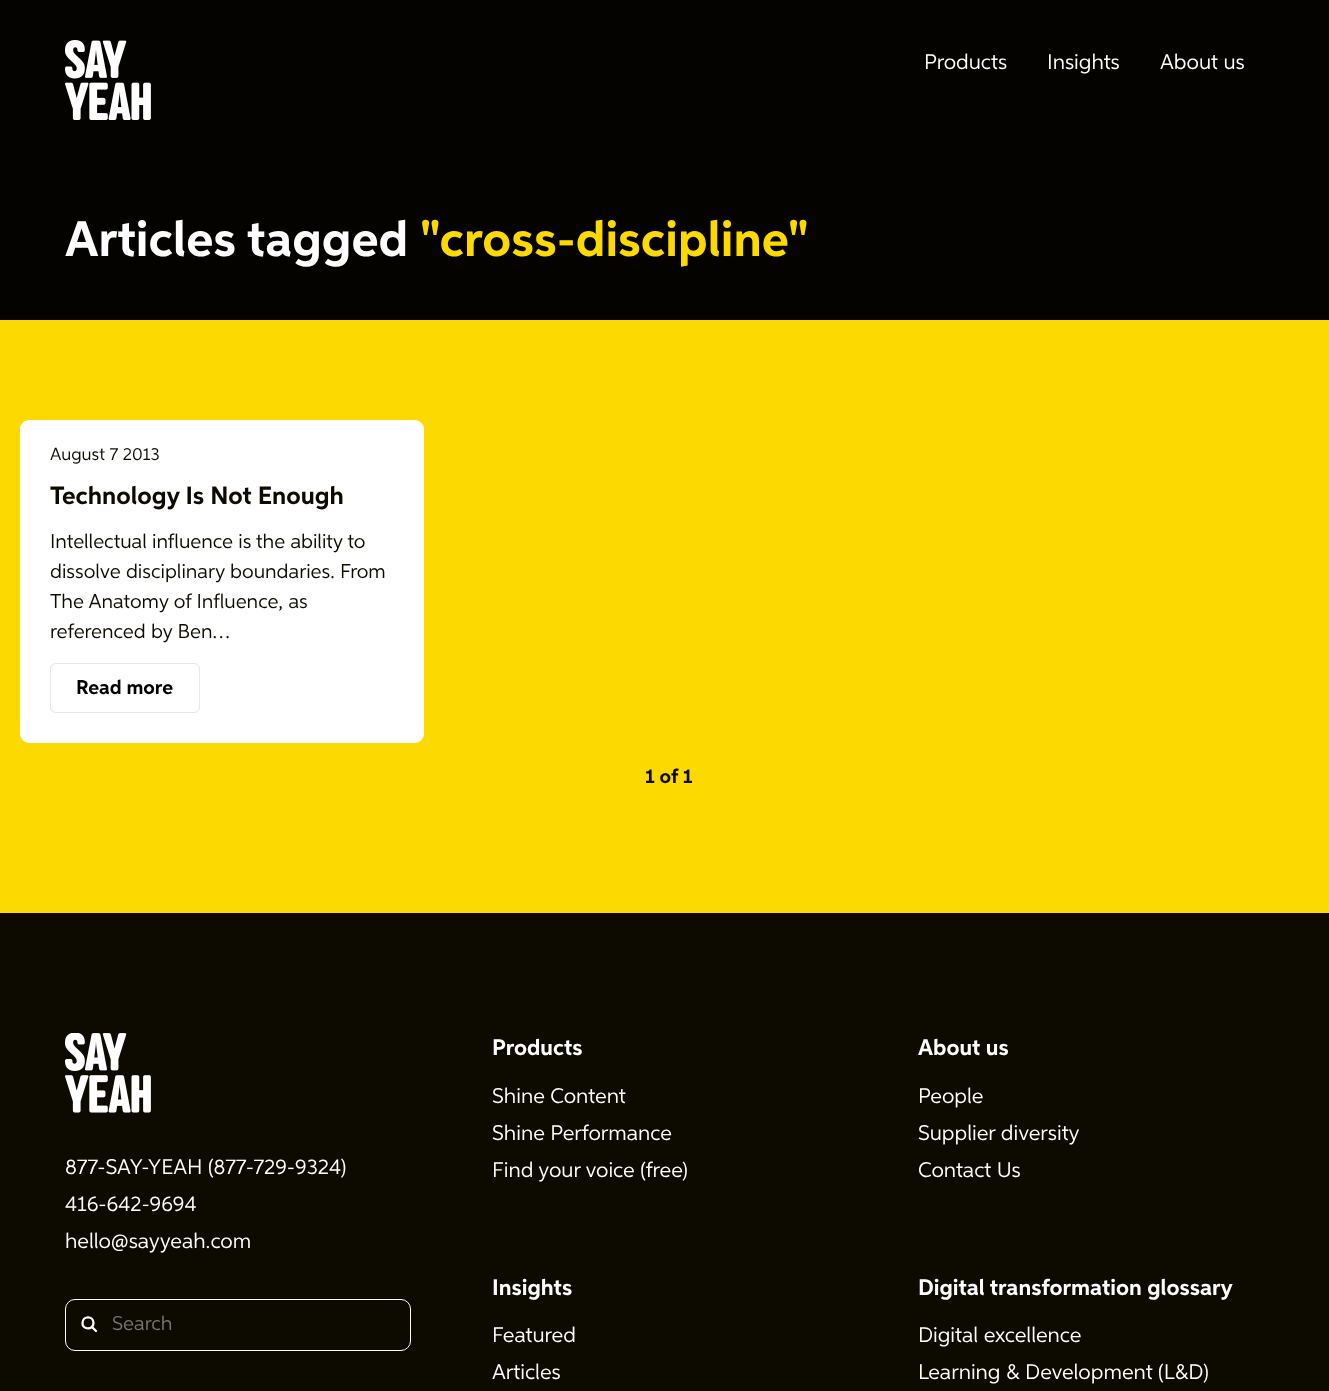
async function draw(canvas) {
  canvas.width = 1329;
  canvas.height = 1391;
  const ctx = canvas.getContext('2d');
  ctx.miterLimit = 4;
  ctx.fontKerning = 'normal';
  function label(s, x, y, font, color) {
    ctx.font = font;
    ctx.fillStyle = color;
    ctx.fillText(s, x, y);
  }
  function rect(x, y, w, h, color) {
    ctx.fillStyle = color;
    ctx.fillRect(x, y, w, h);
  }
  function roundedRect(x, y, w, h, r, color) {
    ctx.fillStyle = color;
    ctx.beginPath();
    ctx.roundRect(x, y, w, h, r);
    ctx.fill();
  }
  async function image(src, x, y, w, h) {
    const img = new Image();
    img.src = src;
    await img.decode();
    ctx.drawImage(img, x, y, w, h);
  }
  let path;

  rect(0, 0, 1329, 1391, '#fcd900');
  rect(0, 0, 1329, 320, '#040300');
  await image('assets/img1.png', 65, 40, 86, 80);
  label('Products', 924, 69, '21.25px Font', '#fff');
  label('Insights', 1047, 69, '21.25px Font', '#fff');
  label('About us', 1160, 69, '21.25px Font', '#fff');
  label('Articles tagged', 65, 256, 'bold 50px Font', '#fff');
  label('"cross-discipline"', 420, 256, 'bold 50px Font', '#fcd900');
  roundedRect(20, 420, 404, 323, 9, '#fff');
  label('August 7 2013', 50, 460, '17.5px Font', '#0d0b00');
  label('Technology Is Not Enough', 50, 504, 'bold 25px Font', '#0d0b00');
  label('Intellectual influence is the ability to', 50, 548, '20px Font', '#0d0b00');
  label('dissolve disciplinary boundaries. From', 50, 578, '20px Font', '#0d0b00');
  label('The Anatomy of Influence, as', 50, 608, '20px Font', '#0d0b00');
  label('referenced by Ben…', 50, 638, '20px Font', '#0d0b00');
  ctx.beginPath();
  ctx.roundRect(50.5, 663.5, 149, 49, 5.5);
  ctx.strokeStyle = '#e7e7e6';
  ctx.stroke();
  label('Read more', 76, 694, 'bold 20px Font', '#000');
  label('1 of 1', 645, 783, 'bold 20px Font', '#0d0b00');
  rect(0, 913, 1329, 478, '#0d0b00');
  await image('assets/img2.png', 65, 1033, 86, 80);
  label('877-SAY-YEAH (877-729-9324)', 65, 1174, '21.25px Font', '#fff');
  label('416-642-9694', 65, 1211, '21.25px Font', '#fff');
  label('hello@sayyeah.com', 65, 1248, '21.25px Font', '#fff');
  ctx.beginPath();
  ctx.roundRect(65.5, 1299.5, 345, 51, 9.5);
  ctx.strokeStyle = '#fff';
  ctx.stroke();
  path = new Path2D('M96 1331L92 1327M93.5 1323C93.5 1330.5 82 1330 82.5 1323C82.5 1315.5 93.5 1315.5 93.5 1323Z');
  ctx.lineWidth = 2.3;
  ctx.lineCap = 'round';
  ctx.lineJoin = 'round';
  ctx.stroke(path);
  label('Search', 112, 1330, '20px Font', '#757575');
  label('Products', 492, 1055, 'bold 22.5px Font', '#fff');
  label('Shine Content', 492, 1103, '21.25px Font', '#fff');
  label('Shine Performance', 492, 1140, '21.25px Font', '#fff');
  label('Find your voice (free)', 492, 1177, '21.25px Font', '#fff');
  label('About us', 918, 1055, 'bold 22.5px Font', '#fff');
  label('People', 918, 1103, '21.25px Font', '#fff');
  label('Supplier diversity', 918, 1140, '21.25px Font', '#fff');
  label('Contact Us', 918, 1177, '21.25px Font', '#fff');
  label('Insights', 492, 1295, 'bold 22.5px Font', '#fff');
  label('Featured', 492, 1342, '21.25px Font', '#fff');
  label('Articles', 492, 1379, '21.25px Font', '#fff');
  label('Digital transformation glossary', 918, 1295, 'bold 22.5px Font', '#fff');
  label('Digital excellence', 918, 1342, '21.25px Font', '#fff');
  label('Learning & Development (L&D)', 918, 1379, '21.25px Font', '#fff');
}

draw(document.querySelector('canvas'));
